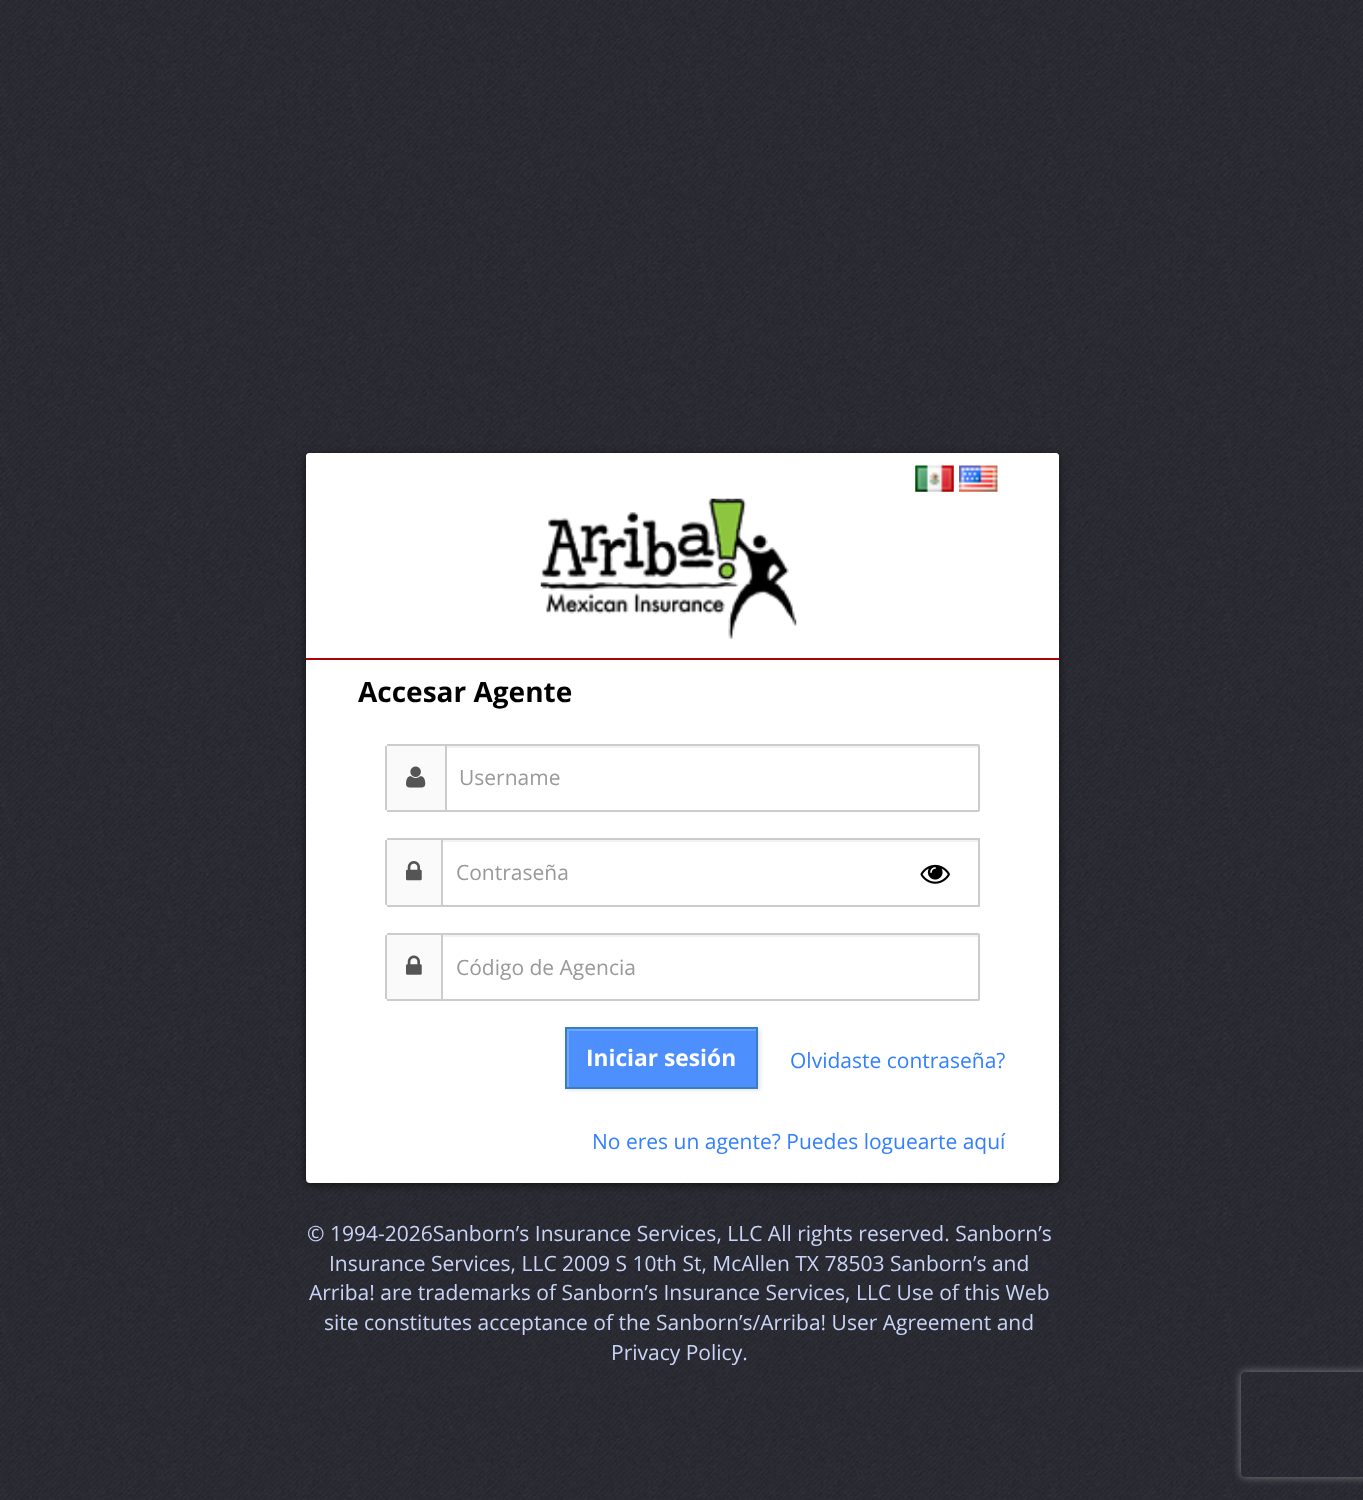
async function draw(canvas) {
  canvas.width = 1363;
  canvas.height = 1500;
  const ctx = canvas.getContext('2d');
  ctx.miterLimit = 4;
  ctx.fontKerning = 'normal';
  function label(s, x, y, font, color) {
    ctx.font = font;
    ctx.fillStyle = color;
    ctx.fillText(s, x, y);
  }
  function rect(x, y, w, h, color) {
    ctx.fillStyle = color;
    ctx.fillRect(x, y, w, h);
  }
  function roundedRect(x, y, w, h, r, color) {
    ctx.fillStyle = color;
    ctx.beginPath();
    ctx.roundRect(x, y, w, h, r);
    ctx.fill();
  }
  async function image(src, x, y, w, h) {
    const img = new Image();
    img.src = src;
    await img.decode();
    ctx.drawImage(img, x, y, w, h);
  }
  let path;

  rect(0, 0, 1363, 1500, '#fff');
  await image('assets/img1.png', 0, 0, 1363, 1500);
  ctx.fillStyle = '#00000099';
  ctx.filter = 'blur(4.5px)';
  ctx.beginPath();
  ctx.roundRect(306, 455, 753, 730, 4);
  ctx.fill();
  ctx.filter = 'none';
  roundedRect(306, 453, 753, 730, 4, '#fff');
  ctx.beginPath();
  ctx.roundRect(306, 453, 753, 207, [4, 4, 0, 0]);
  ctx.fill();
  rect(306, 658, 753, 2, '#ad0306');
  await image('assets/img2.png', 540, 498, 257, 141);
  await image('assets/img3.png', 915, 465, 39, 27);
  await image('assets/img4.png', 959, 465, 39, 27);
  label('Accesar Agente', 358, 702, 'bold 28px Open Sans', '#000');
  ctx.fillStyle = '#fafafa';
  ctx.beginPath();
  ctx.roundRect(385, 744, 60, 68, [4, 0, 0, 4]);
  ctx.fill();
  rect(387, 744, 58, 2, '#ccc');
  rect(387, 810, 58, 2, '#ccc');
  rect(385, 746, 2, 64, '#ccc');
  await image('assets/img5.png', 406, 766, 20, 22);
  rect(446, 746, 532, 2, '#f2f2f2');
  ctx.beginPath();
  ctx.roundRect(446, 745, 533, 66, [0, 1, 1, 0]);
  ctx.strokeStyle = '#ccc';
  ctx.lineWidth = 2;
  ctx.stroke();
  label('Username', 459, 785, '21px Open Sans', '#999');
  ctx.fillStyle = '#fafafa';
  ctx.beginPath();
  ctx.roundRect(385, 838, 56, 69, [4, 0, 0, 4]);
  ctx.fill();
  rect(387, 838, 54, 2, '#ccc');
  rect(387, 905, 54, 2, '#ccc');
  rect(385, 840, 2, 65, '#ccc');
  await image('assets/img6.png', 406, 861, 16, 20);
  rect(443, 840, 535, 2, '#f2f2f2');
  ctx.strokeRect(442, 839, 537, 67);
  label('Contraseña', 456, 880, '21px Open Sans', '#999');
  await image('assets/img7.png', 920, 864, 30, 20);
  ctx.fillStyle = '#fafafa';
  ctx.beginPath();
  ctx.roundRect(385, 933, 56, 68, [4, 0, 0, 4]);
  ctx.fill();
  rect(387, 933, 54, 2, '#ccc');
  rect(387, 999, 54, 2, '#ccc');
  rect(385, 935, 2, 64, '#ccc');
  await image('assets/img8.png', 406, 955, 16, 20);
  rect(443, 935, 535, 2, '#f2f2f2');
  ctx.beginPath();
  ctx.roundRect(442, 934, 537, 66, [0, 1, 1, 0]);
  ctx.stroke();
  label('Código de Agencia', 456, 975, '21px Open Sans', '#999');
  ctx.fillStyle = '#0000001f';
  ctx.filter = 'blur(2px)';
  ctx.beginPath();
  ctx.rect(567, 1029, 193, 61);
  ctx.fill();
  ctx.filter = 'none';
  rect(569, 1031, 187, 56, '#4d90fd');
  ctx.save();
  ctx.beginPath();
  ctx.rect(567, 1029, 189, 58);
  ctx.clip();
  ctx.fillStyle = '#71a6fd';
  path = new Path2D('M394 856H929V1183H394ZM569 1031V1088H758V1031Z');
  ctx.fill(path, 'evenodd');
  ctx.restore();
  ctx.strokeStyle = '#3680bf';
  ctx.strokeRect(566, 1028, 191, 60);
  label('Iniciar sesión', 586, 1066, 'bold 22.75px Open Sans', '#fff');
  label('Olvidaste contraseña?', 790, 1068, '21px Open Sans', '#3380ff');
  label('No eres un agente? Puedes loguearte aquí', 592, 1149, '21px Open Sans', '#3380ff');
  label('© 1994-2026Sanborn’s Insurance Services, LLC All rights reserved. Sanborn’s', 307, 1241, '21px Open Sans', '#c9d4f6');
  label('Insurance Services, LLC 2009 S 10th St, McAllen TX 78503 Sanborn’s and', 329, 1271, '21px Open Sans', '#c9d4f6');
  label('Arriba! are trademarks of Sanborn’s Insurance Services, LLC Use of this Web', 309, 1300, '21px Open Sans', '#c9d4f6');
  label('site constitutes acceptance of the Sanborn’s/Arriba! User Agreement and', 324, 1330, '21px Open Sans', '#c9d4f6');
  label('Privacy Policy.', 611, 1360, '21px Open Sans', '#c9d4f6');
  ctx.save();
  path = new Path2D('M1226 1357H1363V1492H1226ZM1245 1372H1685C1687 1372 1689 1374 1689 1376V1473C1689 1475 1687 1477 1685 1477H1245C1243 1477 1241 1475 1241 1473V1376C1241 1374 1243 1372 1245 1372Z');
  ctx.clip(path, 'evenodd');
  ctx.fillStyle = '#808080';
  ctx.filter = 'blur(4.5px)';
  ctx.beginPath();
  ctx.roundRect(1241, 1372, 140, 105, 4);
  ctx.fill();
  ctx.filter = 'none';
  ctx.restore();
}

draw(document.querySelector('canvas'));
